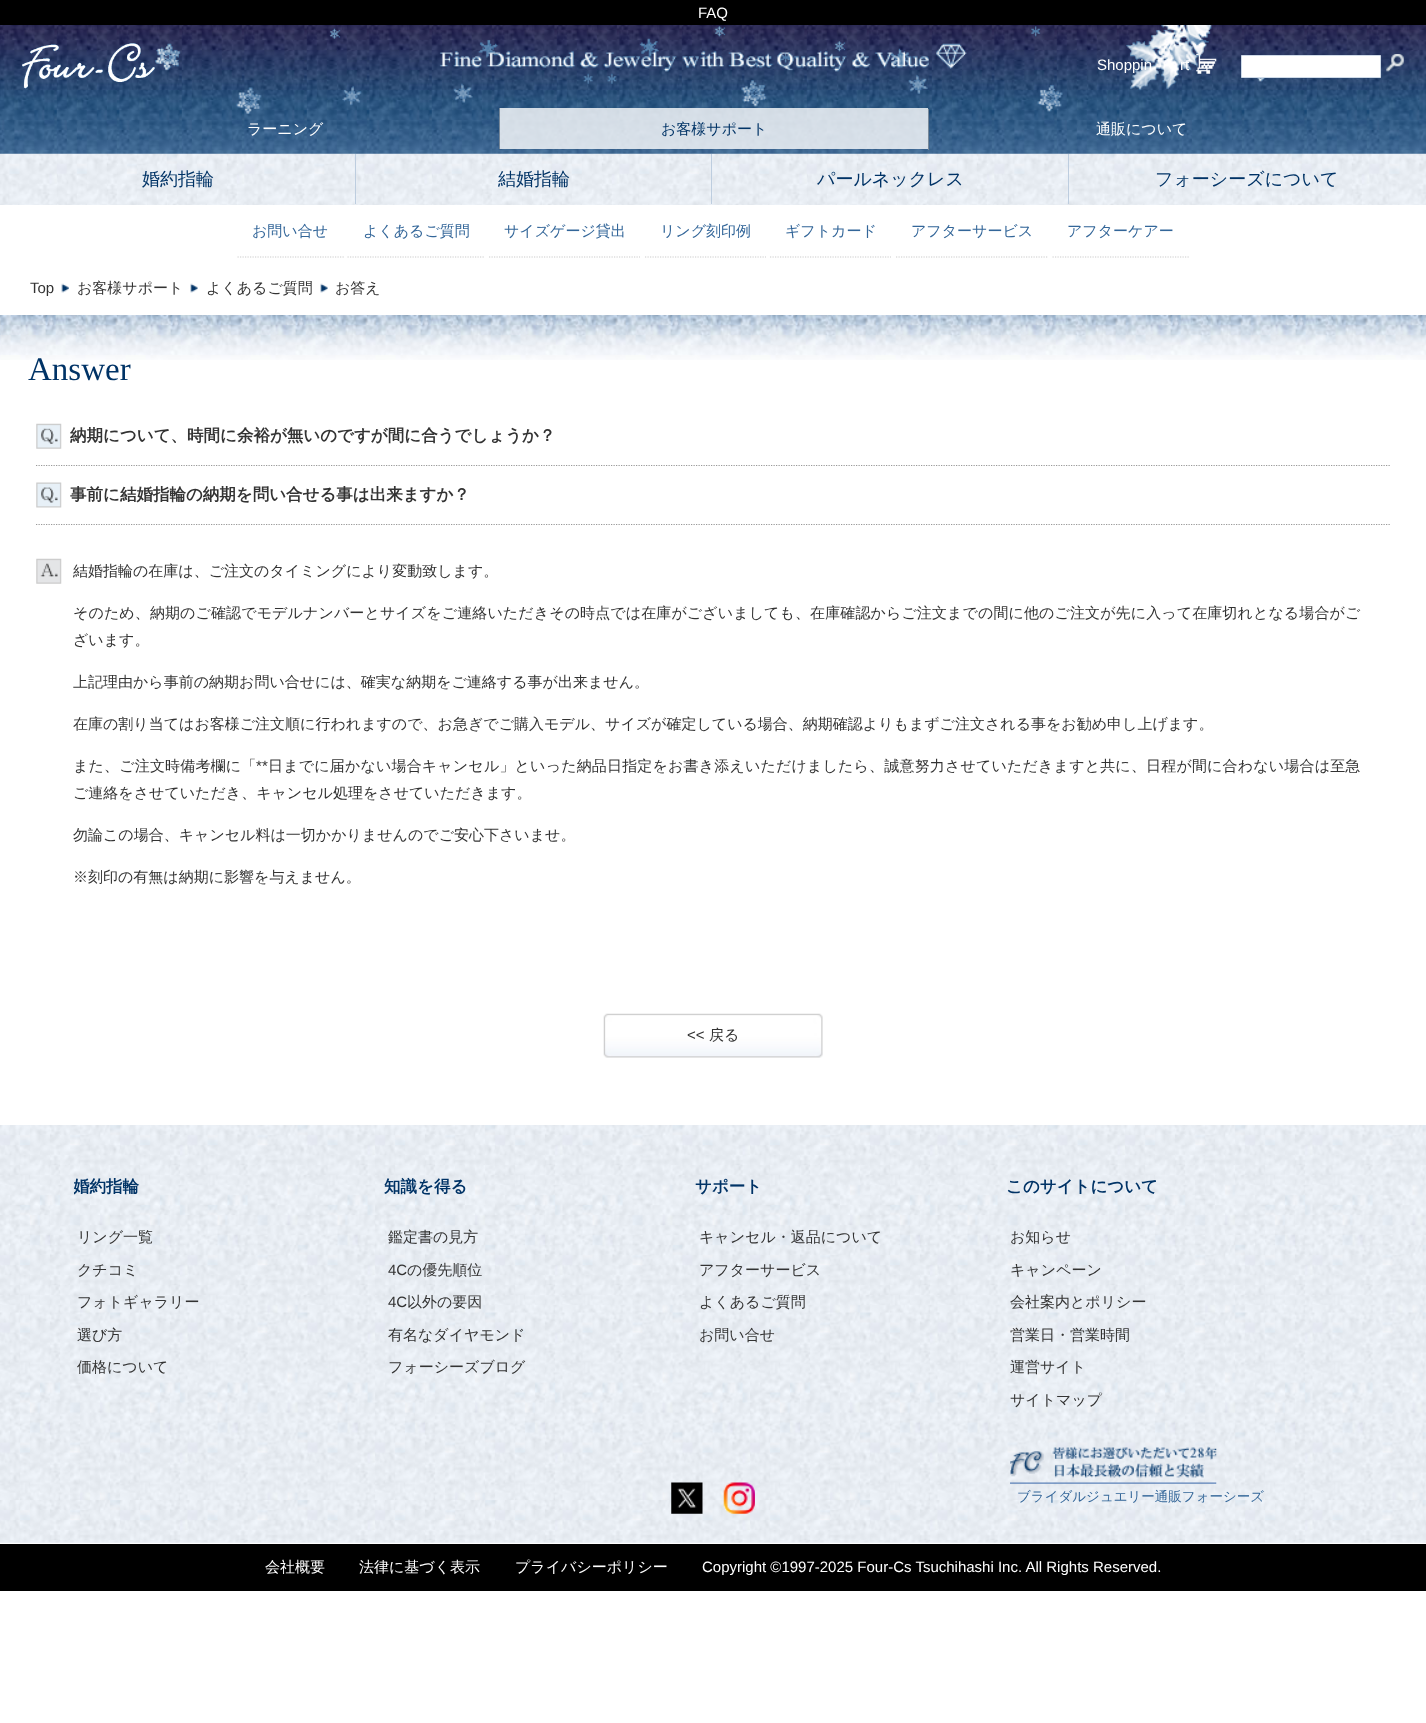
async function draw(canvas) {
  canvas.width = 1426;
  canvas.height = 1723;
  const ctx = canvas.getContext('2d');
  ctx.miterLimit = 4;
  ctx.fontKerning = 'normal';
  function label(s, x, y, font, color) {
    ctx.font = font;
    ctx.fillStyle = color;
    ctx.fillText(s, x, y);
  }
  function rect(x, y, w, h, color) {
    ctx.fillStyle = color;
    ctx.fillRect(x, y, w, h);
  }
  async function image(src, x, y, w, h) {
    const img = new Image();
    img.src = src;
    await img.decode();
    ctx.drawImage(img, x, y, w, h);
  }
  let path;

  rect(0, 0, 1426, 1723, '#fff');
  await image('assets/img1.png', 0, 25, 1426, 129);
  rect(0, 0, 1426, 25, '#000');
  label('FAQ', 698, 18, '15px Liberation Sans', '#fff');
  await image('assets/img2.png', 155, 25, 1111, 89);
  await image('assets/img3.png', 22, 43, 133, 46);
  await image('assets/img4.png', 1196, 53, 21, 21);
  label('Shoppin', 1097, 70, '15px Liberation Sans', '#fff');
  label('rt', 1180, 70, '15px Liberation Sans', '#fff');
  ctx.beginPath();
  ctx.rect(1241.5, 55.5, 139, 22);
  ctx.fill();
  ctx.strokeStyle = '#cedae8';
  ctx.stroke();
  await image('assets/img5.png', 1386, 54, 18, 18);
  path = new Path2D('M237.5 257H344');
  ctx.strokeStyle = '#ccc';
  ctx.lineWidth = 1.2;
  ctx.setLineDash([1.25, 1.25]);
  ctx.stroke(path);
  label('お問い合せ', 252, 236, '500 15px WenQuanYi Zen Hei', '#369');
  path = new Path2D('M347.5 257H485');
  ctx.stroke(path);
  label('よくあるご質問', 363, 236, '500 15px WenQuanYi Zen Hei', '#369');
  path = new Path2D('M489 257H640');
  ctx.stroke(path);
  label('サイズゲージ貸出', 504, 236, '500 15px WenQuanYi Zen Hei', '#369');
  path = new Path2D('M645 257H766');
  ctx.stroke(path);
  label('リング刻印例', 660, 236, '500 15px WenQuanYi Zen Hei', '#369');
  path = new Path2D('M770 257H891');
  ctx.stroke(path);
  label('ギフトカード', 785, 236, '500 15px WenQuanYi Zen Hei', '#369');
  path = new Path2D('M896 257H1047.5');
  ctx.stroke(path);
  label('アフターサービス', 911, 236, '500 15px WenQuanYi Zen Hei', '#369');
  path = new Path2D('M1052.5 257H1189');
  ctx.stroke(path);
  label('アフターケアー', 1067, 236, '500 15px WenQuanYi Zen Hei', '#369');
  await image('assets/img6.png', 0, 315, 1426, 45);
  label('Answer', 28, 380, '33px Liberation Serif', '#036');
  await image('assets/img7.png', 36, 423, 26, 26);
  path = new Path2D('M36 465.5H1390');
  ctx.strokeStyle = '#999';
  ctx.stroke(path);
  label('納期について、時間に余裕が無いのですが間に合うでしょうか？', 70, 441, 'bold 16.5px WenQuanYi Zen Hei', '#333');
  await image('assets/img8.png', 36, 482, 26, 26);
  path = new Path2D('M36 524.5H1390');
  ctx.stroke(path);
  label('事前に結婚指輪の納期を問い合せる事は出来ますか？', 70, 500, 'bold 16.5px WenQuanYi Zen Hei', '#333');
  await image('assets/img9.png', 36, 558, 26, 26);
  label('結婚指輪の在庫は、ご注文のタイミングにより変動致します。', 73, 576, '500 15px WenQuanYi Zen Hei', '#333');
  ctx.letterSpacing = '0.1px';
  label('そのため、納期のご確認でモデルナンバーとサイズをご連絡いただきその時点では在庫がございましても、在庫確認からご注文までの間に他のご注文が先に入って在庫切れとなる場合がご', 73, 618, '500 15px WenQuanYi Zen Hei', '#333');
  ctx.letterSpacing = '0px';
  label('ざいます。', 73, 645, '500 15px WenQuanYi Zen Hei', '#333');
  label('上記理由から事前の納期お問い合せには、確実な納期をご連絡する事が出来ません。', 73, 687, '500 15px WenQuanYi Zen Hei', '#333');
  label('在庫の割り当てはお客様ご注文順に行われますので、お急ぎでご購入モデル、サイズが確定している場合、納期確認よりもまずご注文される事をお勧め申し上げます。', 73, 729, '500 15px WenQuanYi Zen Hei', '#333');
  ctx.letterSpacing = '0.17px';
  label('また、ご注文時備考欄に「', 73, 771, '500 15px WenQuanYi Zen Hei', '#333');
  label('**', 256, 771, '15px Liberation Sans', '#333');
  label('日までに届かない場合キャンセル」といった納品日指定をお書き添えいただけましたら、誠意努力させていただきますと共に、日程が間に合わない場合は至急', 268, 771, '500 15px WenQuanYi Zen Hei', '#333');
  ctx.letterSpacing = '0px';
  label('ご連絡をさせていただき、キャンセル処理をさせていただきます。', 73, 798, '500 15px WenQuanYi Zen Hei', '#333');
  label('勿論この場合、キャンセル料は一切かかりませんのでご安心下さいませ。', 73, 840, '500 15px WenQuanYi Zen Hei', '#333');
  label('※刻印の有無は納期に影響を与えません。', 73, 882, '500 15px WenQuanYi Zen Hei', '#333');
  await image('assets/img10.png', 603, 1013, 220, 45);
  label('<<', 687, 1040, '15px Liberation Sans', '#333');
  label('戻る', 709, 1040, '500 15px WenQuanYi Zen Hei', '#333');
  await image('assets/img11.png', 61, 283, 8, 10);
  label('Top', 30, 293, '15px Liberation Sans', '#333');
  await image('assets/img12.png', 190, 283, 8, 10);
  label('お客様サポート', 77, 293, '500 15px WenQuanYi Zen Hei', '#333');
  await image('assets/img12.png', 320, 283, 8, 10);
  label('よくあるご質問', 206, 293, '500 15px WenQuanYi Zen Hei', '#333');
  label('お答え', 335, 293, '500 15px WenQuanYi Zen Hei', '#333');
  label('ラーニング', 247, 134, '500 15px WenQuanYi Zen Hei', '#fff');
  rect(500, 108, 428, 41, '#ffffffcc');
  rect(499, 108, 1, 41, '#789');
  label('お客様サポート', 661, 134, '500 15px WenQuanYi Zen Hei', '#036');
  rect(928, 109, 1, 41, '#789');
  label('通販について', 1096, 134, '500 15px WenQuanYi Zen Hei', '#fff');
  await image('assets/img13.png', 0, 153, 1426, 52);
  label('婚約指輪', 142, 185, '500 18px WenQuanYi Zen Hei', '#036');
  rect(355, 154, 1, 50, '#bdcddf');
  label('結婚指輪', 498, 185, '500 18px WenQuanYi Zen Hei', '#036');
  rect(711, 154, 1, 50, '#bdcddf');
  label('パールネックレス', 817, 185, '500 18px WenQuanYi Zen Hei', '#036');
  rect(1068, 154, 1, 50, '#bdcddf');
  label('フォーシーズについて', 1155, 185, '500 18px WenQuanYi Zen Hei', '#036');
  rect(0, 1542, 1426, 1, '#eef3f9');
  await image('assets/img14.png', 0, 1125, 1426, 418);
  ctx.save();
  ctx.beginPath();
  ctx.rect(74, 1125, 1280, 418);
  ctx.clip();
  label('婚約指輪', 73, 1192, 'bold 16.5px WenQuanYi Zen Hei', '#036');
  ctx.restore();
  label('リング一覧', 77, 1242, '500 15px WenQuanYi Zen Hei', '#333');
  label('クチコミ', 77, 1275, '500 15px WenQuanYi Zen Hei', '#333');
  label('フォトギャラリー', 77, 1307, '500 15px WenQuanYi Zen Hei', '#333');
  label('選び方', 77, 1340, '500 15px WenQuanYi Zen Hei', '#333');
  label('価格について', 77, 1372, '500 15px WenQuanYi Zen Hei', '#333');
  label('知識を得る', 384, 1192, 'bold 16.5px WenQuanYi Zen Hei', '#036');
  label('鑑定書の見方', 388, 1242, '500 15px WenQuanYi Zen Hei', '#333');
  label('4C', 388, 1275, '15px Liberation Sans', '#333');
  label('の優先順位', 407, 1275, '500 15px WenQuanYi Zen Hei', '#333');
  label('4C', 388, 1307, '15px Liberation Sans', '#333');
  label('以外の要因', 407, 1307, '500 15px WenQuanYi Zen Hei', '#333');
  label('有名なダイヤモンド', 388, 1340, '500 15px WenQuanYi Zen Hei', '#333');
  label('フォーシーズブログ', 388, 1372, '500 15px WenQuanYi Zen Hei', '#333');
  label('サポート', 695, 1192, 'bold 16.5px WenQuanYi Zen Hei', '#036');
  label('キャンセル・返品について', 699, 1242, '500 15px WenQuanYi Zen Hei', '#333');
  label('アフターサービス', 699, 1275, '500 15px WenQuanYi Zen Hei', '#333');
  label('よくあるご質問', 699, 1307, '500 15px WenQuanYi Zen Hei', '#333');
  label('お問い合せ', 699, 1340, '500 15px WenQuanYi Zen Hei', '#333');
  label('このサイトについて', 1006, 1192, 'bold 16.5px WenQuanYi Zen Hei', '#036');
  label('お知らせ', 1010, 1242, '500 15px WenQuanYi Zen Hei', '#333');
  label('キャンペーン', 1010, 1275, '500 15px WenQuanYi Zen Hei', '#333');
  label('会社案内とポリシー', 1010, 1307, '500 15px WenQuanYi Zen Hei', '#333');
  label('営業日・営業時間', 1010, 1340, '500 15px WenQuanYi Zen Hei', '#333');
  label('運営サイト', 1010, 1372, '500 15px WenQuanYi Zen Hei', '#333');
  label('サイトマップ', 1010, 1405, '500 15px WenQuanYi Zen Hei', '#333');
  await image('assets/img15.png', 1010, 1446, 207, 38);
  label('ブライダルジュエリー通販フォーシーズ', 1017, 1501, '500 13.5px WenQuanYi Zen Hei', '#369');
  await image('assets/img16.png', 671, 1482, 32, 32);
  await image('assets/img17.png', 723, 1482, 32, 32);
  rect(0, 1544, 1426, 47, '#000');
  label('会社概要', 265, 1572, '500 15px WenQuanYi Zen Hei', '#fff');
  label('法律に基づく表示', 359, 1572, '500 15px WenQuanYi Zen Hei', '#fff');
  label('プライバシーポリシー', 515, 1572, '500 15px WenQuanYi Zen Hei', '#fff');
  label('Copyright ©1997-2025 Four-Cs Tsuchihashi Inc. All Rights Reserved.', 702, 1572, '15px Liberation Sans', '#fff');
}

draw(document.querySelector('canvas'));
